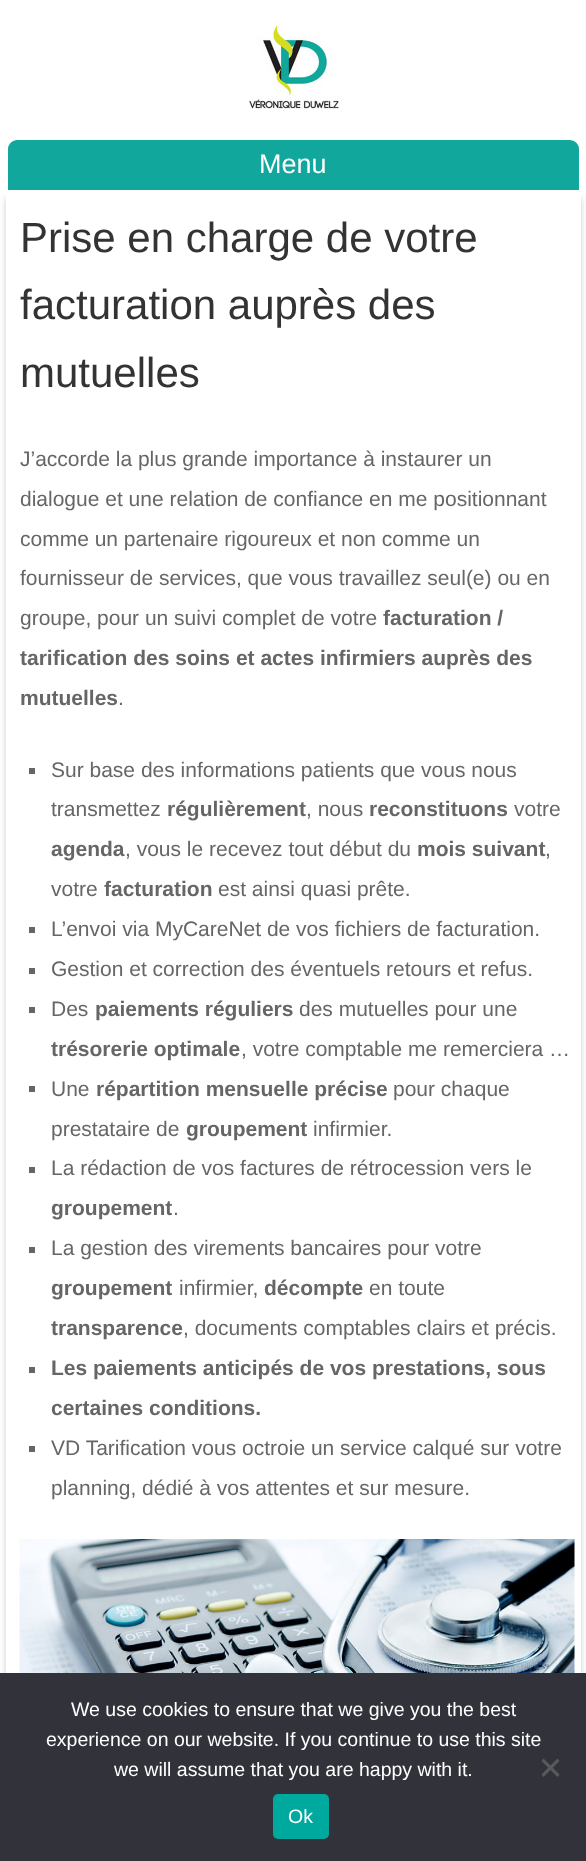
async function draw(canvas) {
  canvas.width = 586;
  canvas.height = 1861;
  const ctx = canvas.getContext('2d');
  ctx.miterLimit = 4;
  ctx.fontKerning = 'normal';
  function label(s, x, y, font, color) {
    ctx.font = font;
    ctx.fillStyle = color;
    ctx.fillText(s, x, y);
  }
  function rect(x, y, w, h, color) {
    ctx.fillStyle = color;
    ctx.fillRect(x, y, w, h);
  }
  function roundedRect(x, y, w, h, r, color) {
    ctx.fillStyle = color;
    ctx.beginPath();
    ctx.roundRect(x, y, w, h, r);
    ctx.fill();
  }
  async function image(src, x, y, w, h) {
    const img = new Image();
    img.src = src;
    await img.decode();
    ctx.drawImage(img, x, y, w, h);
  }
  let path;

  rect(0, 0, 586, 1861, '#fff');
  await image('assets/img1.png', 249, 24, 90, 85);
  ctx.fillStyle = '#11a79c';
  ctx.beginPath();
  ctx.roundRect(7, 139, 573, 52, [10, 10, 0, 0]);
  ctx.fill();
  ctx.strokeStyle = '#fff';
  ctx.lineWidth = 2;
  ctx.stroke();
  label('Menu', 259, 173, '27px Liberation Sans', '#fff');
  ctx.fillStyle = '#00000033';
  ctx.filter = 'blur(3px)';
  ctx.beginPath();
  ctx.rect(6, 198, 575, 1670);
  ctx.fill();
  ctx.filter = 'none';
  rect(6, 193, 575, 1480, '#fff');
  label('Prise en charge de votre', 20, 252, '42px Liberation Sans', '#333');
  label('facturation auprès des', 20, 319, '42px Liberation Sans', '#333');
  label('mutuelles', 20, 387, '42px Liberation Sans', '#333');
  label('J’accorde la plus grande importance à instaurer un', 20, 466, '21px Liberation Sans', '#666');
  label('dialogue et une relation de confiance en me positionnant', 20, 506, '21px Liberation Sans', '#666');
  label('comme un partenaire rigoureux et non comme un', 20, 546, '21px Liberation Sans', '#666');
  label('fournisseur de services, que vous travaillez seul(e) ou en', 20, 585, '21px Liberation Sans', '#666');
  label('groupe, pour un suivi complet de votre', 20, 625, '21px Liberation Sans', '#666');
  label('facturation /', 383, 625, 'bold 21px Liberation Sans', '#666');
  label('tarification des soins et actes infirmiers auprès des', 20, 665, 'bold 21px Liberation Sans', '#666');
  label('mutuelles', 20, 705, 'bold 21px Liberation Sans', '#666');
  label('.', 118, 705, '21px Liberation Sans', '#666');
  rect(29, 768, 6, 6, '#666');
  label('Sur base des informations patients que vous nous', 51, 777, '21px Liberation Sans', '#666');
  label('transmettez', 51, 816, '21px Liberation Sans', '#666');
  label('régulièrement', 167, 816, 'bold 21px Liberation Sans', '#666');
  label(', nous', 306, 816, '21px Liberation Sans', '#666');
  label('reconstituons', 369, 816, 'bold 21px Liberation Sans', '#666');
  label('votre', 514, 816, '21px Liberation Sans', '#666');
  label('agenda', 51, 856, 'bold 21px Liberation Sans', '#666');
  label(', vous le recevez tout début du', 125, 856, '21px Liberation Sans', '#666');
  label('mois suivant', 417, 856, 'bold 21px Liberation Sans', '#666');
  label(',', 545, 856, '21px Liberation Sans', '#666');
  label('votre', 51, 896, '21px Liberation Sans', '#666');
  label('facturation', 104, 896, 'bold 21px Liberation Sans', '#666');
  label('est ainsi quasi prête.', 218, 896, '21px Liberation Sans', '#666');
  rect(29, 927, 6, 6, '#666');
  label('L’envoi via MyCareNet de vos fichiers de facturation.', 51, 936, '21px Liberation Sans', '#666');
  rect(29, 968, 6, 6, '#666');
  label('Gestion et correction des éventuels retours et refus.', 51, 976, '21px Liberation Sans', '#666');
  rect(29, 1007, 6, 6, '#666');
  label('Des', 51, 1016, '21px Liberation Sans', '#666');
  label('paiements réguliers', 95, 1016, 'bold 21px Liberation Sans', '#666');
  label('des mutuelles pour une', 299, 1016, '21px Liberation Sans', '#666');
  label('trésorerie optimale', 51, 1056, 'bold 21px Liberation Sans', '#666');
  label(', votre comptable me remerciera …', 241, 1056, '21px Liberation Sans', '#666');
  rect(29, 1086, 6, 6, '#666');
  label('Une', 51, 1096, '21px Liberation Sans', '#666');
  label('répartition mensuelle précise', 96, 1096, 'bold 21px Liberation Sans', '#666');
  label('pour chaque', 393, 1096, '21px Liberation Sans', '#666');
  label('prestataire de', 51, 1136, '21px Liberation Sans', '#666');
  label('groupement', 186, 1136, 'bold 21px Liberation Sans', '#666');
  label('infirmier.', 313, 1136, '21px Liberation Sans', '#666');
  rect(29, 1167, 6, 6, '#666');
  label('La rédaction de vos factures de rétrocession vers le', 51, 1175, '21px Liberation Sans', '#666');
  label('groupement', 51, 1215, 'bold 21px Liberation Sans', '#666');
  label('.', 173, 1215, '21px Liberation Sans', '#666');
  rect(29, 1247, 6, 6, '#666');
  label('La gestion des virements bancaires pour votre', 51, 1255, '21px Liberation Sans', '#666');
  label('groupement', 51, 1295, 'bold 21px Liberation Sans', '#666');
  label('infirmier,', 179, 1295, '21px Liberation Sans', '#666');
  label('décompte', 264, 1295, 'bold 21px Liberation Sans', '#666');
  label('en toute', 369, 1295, '21px Liberation Sans', '#666');
  label('transparence', 51, 1335, 'bold 21px Liberation Sans', '#666');
  label(', documents comptables clairs et précis.', 183, 1335, '21px Liberation Sans', '#666');
  rect(29, 1367, 6, 6, '#666');
  label('Les paiements anticipés de vos prestations, sous', 51, 1375, 'bold 21px Liberation Sans', '#666');
  label('certaines conditions.', 51, 1415, 'bold 21px Liberation Sans', '#666');
  rect(29, 1446, 6, 6, '#666');
  label('VD Tarification vous octroie un service calqué sur votre', 51, 1455, '21px Liberation Sans', '#666');
  label('planning, dédié à vos attentes et sur mesure.', 51, 1495, '21px Liberation Sans', '#666');
  await image('assets/img2.png', 19, 1539, 556, 134);
  rect(0, 1673, 586, 188, '#32323a');
  label('We use cookies to ensure that we give you the best', 71, 1716, '19.5px Liberation Sans', '#fff');
  label('experience on our website. If you continue to use this site', 46, 1746, '19.5px Liberation Sans', '#fff');
  label('we will assume that you are happy with it.', 114, 1776, '19.5px Liberation Sans', '#fff');
  ctx.fillStyle = '#59595d';
  path = new Path2D('M557.5 1758.5L559.5 1761L543.5 1777L541.5 1774.5Z');
  ctx.fill(path);
  path = new Path2D('M541.5 1761L543.5 1758.5L559.5 1774.5L557.5 1777Z');
  ctx.fill(path);
  roundedRect(273, 1794, 56, 45, 5, '#00a99d');
  label('Ok', 288, 1823, '19.5px Liberation Sans', '#fff');
}

draw(document.querySelector('canvas'));
